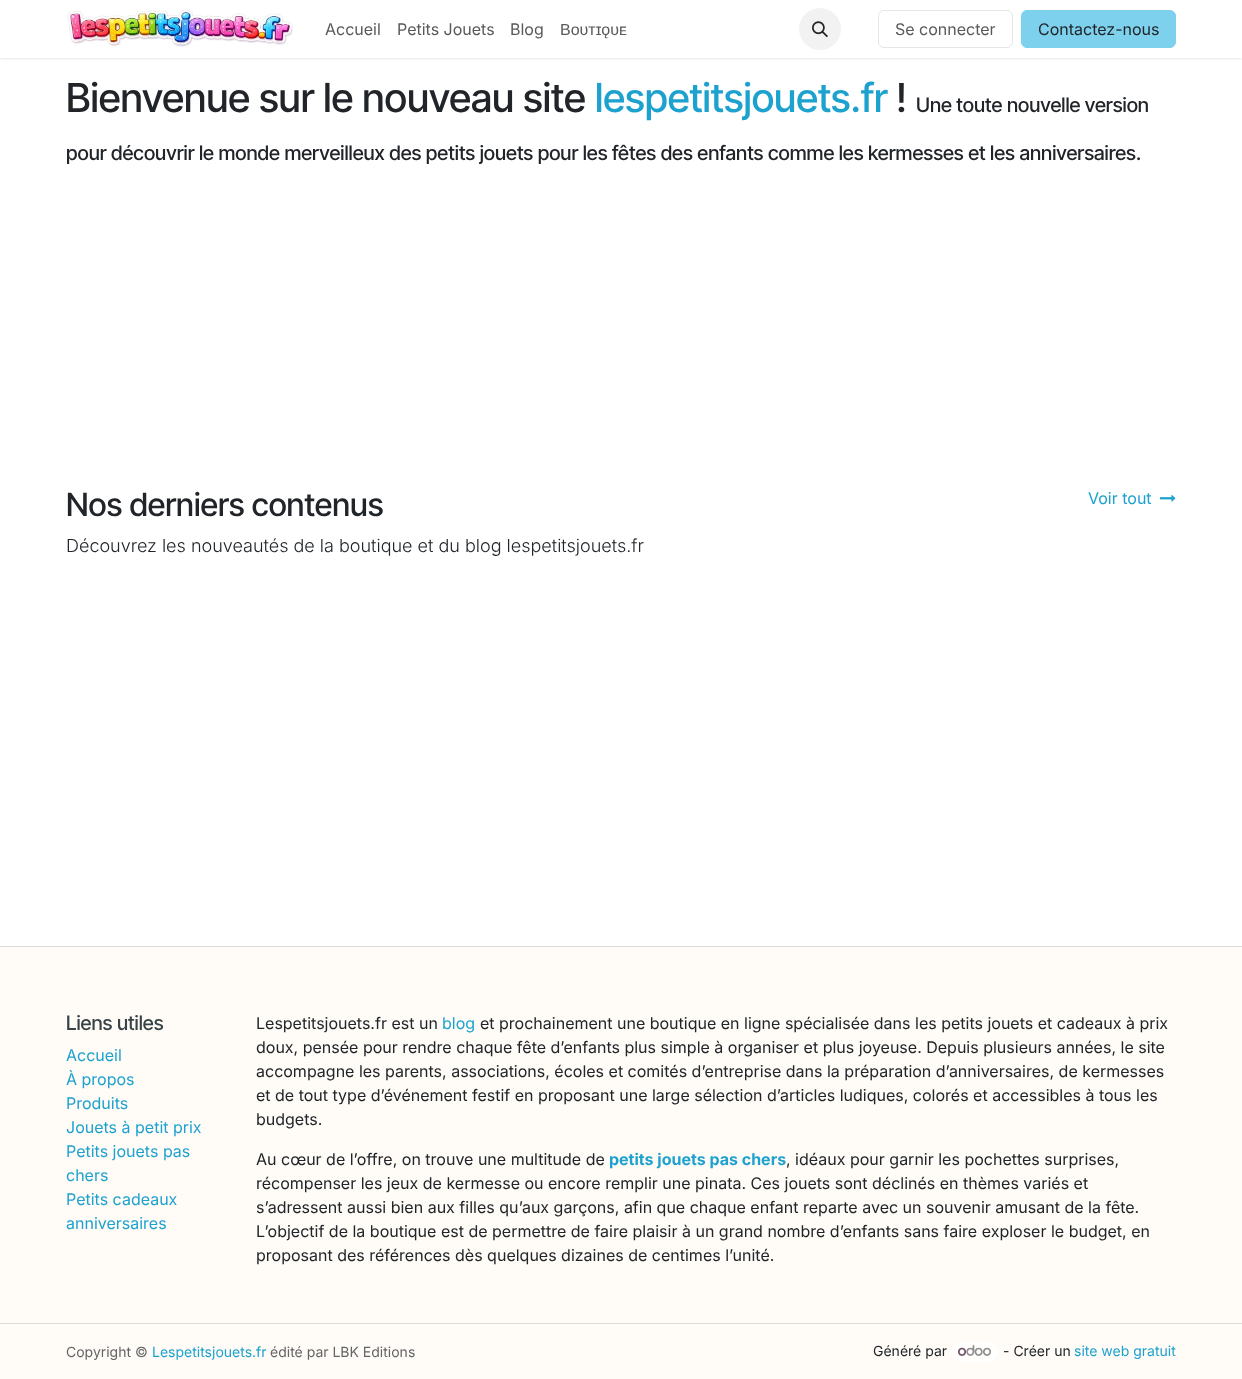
async function draw(canvas) {
  canvas.width = 1242;
  canvas.height = 1379;
  const ctx = canvas.getContext('2d');
  ctx.miterLimit = 4;
  ctx.fontKerning = 'normal';
  function label(s, x, y, font, color) {
    ctx.font = font;
    ctx.fillStyle = color;
    ctx.fillText(s, x, y);
  }
  function rect(x, y, w, h, color) {
    ctx.fillStyle = color;
    ctx.fillRect(x, y, w, h);
  }
  async function image(src, x, y, w, h) {
    const img = new Image();
    img.src = src;
    await img.decode();
    ctx.drawImage(img, x, y, w, h);
  }

  rect(0, 0, 1242, 1379, '#fff');
  ctx.save();
  ctx.beginPath();
  ctx.rect(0, 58, 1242, 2);
  ctx.clip();
  ctx.fillStyle = '#0000001a';
  ctx.filter = 'blur(1.5px)';
  ctx.beginPath();
  ctx.rect(0, 1, 1242, 58);
  ctx.fill();
  ctx.filter = 'none';
  ctx.restore();
  await image('assets/img1.png', 67, 9, 226, 38);
  label('Accueil', 325, 35, '16px Inter', '#595959');
  label('Petits Jouets', 397, 35, '16px Inter', '#595959');
  label('Blog', 510, 35, '16px Inter', '#595959');
  label('Bᴏᴜᴛɪǫᴜᴇ', 560, 35, '16px Liberation Sans', '#595959');
  ctx.fillStyle = '#f2f2f2';
  ctx.beginPath();
  ctx.arc(820, 29, 21, 0, 2 * Math.PI);
  ctx.fill();
  await image('assets/img2.png', 812, 21, 16, 17);
  ctx.beginPath();
  ctx.roundRect(878.5, 10.5, 134, 37, 5.5);
  ctx.strokeStyle = '#e6e6e6';
  ctx.stroke();
  label('Se connecter', 895, 35, '16px Inter', '#595959');
  ctx.fillStyle = '#7ed1ed';
  ctx.beginPath();
  ctx.roundRect(1021.5, 10.5, 154, 37, 5.5);
  ctx.fill();
  ctx.strokeStyle = '#7ed1ed';
  ctx.stroke();
  label('Contactez-nous', 1038, 35, '16px Inter', '#212529');
  label('Bienvenue sur le nouveau site', 66, 112, '500 40px Inter Tight', '#212529');
  label('lespetitsjouets.fr', 595, 112, '500 40px Inter Tight', '#1da2cf');
  label('!', 896, 112, '500 40px Inter Tight', '#212529');
  label('Une toute nouvelle version', 916, 112, '500 20px Inter Tight', '#212529');
  label('pour découvrir le monde merveilleux des petits jouets pour les fêtes des enfants comme les kermesses et les anniversaires.', 66, 160, '500 20px Inter Tight', '#212529');
  label('Nos derniers contenus', 66, 516, '500 32px Inter Tight', '#212529');
  label('Découvrez les nouveautés de la boutique et du blog lespetitsjouets.fr', 66, 552, '300 18px Inter', '#212529');
  label('Voir tout', 1088, 504, '16px Inter', '#1da2cf');
  await image('assets/img3.png', 1160, 494, 16, 8);
  rect(0, 947, 1242, 432, '#fffbf6');
  rect(0, 946, 1242, 1, '#dedbd7');
  rect(0, 1323, 1242, 1, '#dedbd7');
  label('Liens utiles', 66, 1030, '500 20px Inter Tight', '#384347');
  label('Accueil', 66, 1061, '16px Inter', '#1da2cf');
  label('À propos', 66, 1085, '16px Inter', '#1da2cf');
  label('Produits', 66, 1109, '16px Inter', '#1da2cf');
  label('Jouets à petit prix', 66, 1133, '16px Inter', '#1da2cf');
  label('Petits jouets pas', 66, 1157, '16px Inter', '#1da2cf');
  label('chers', 66, 1181, '16px Inter', '#1da2cf');
  label('Petits cadeaux', 66, 1205, '16px Inter', '#1da2cf');
  label('anniversaires', 66, 1229, '16px Inter', '#1da2cf');
  label('Lespetitsjouets.fr est un', 256, 1029, '16px Inter', '#212529');
  label('blog', 442, 1029, '16px Inter', '#1da2cf');
  label('et prochainement une boutique en ligne spécialisée dans les petits jouets et cadeaux à prix', 480, 1029, '16px Inter', '#212529');
  label('doux, pensée pour rendre chaque fête d’enfants plus simple à organiser et plus joyeuse. Depuis plusieurs années, le site', 256, 1053, '16px Inter', '#212529');
  label('accompagne les parents, associations, écoles et comités d’entreprise dans la préparation d’anniversaires, de kermesses', 256, 1077, '16px Inter', '#212529');
  label('et de tout type d’événement festif en proposant une large sélection d’articles ludiques, colorés et accessibles à tous les', 256, 1101, '16px Inter', '#212529');
  label('budgets.', 256, 1125, '16px Inter', '#212529');
  label('Au cœur de l’offre, on trouve une multitude de', 256, 1165, '16px Inter', '#212529');
  label('petits jouets pas chers', 609, 1165, 'bold 16px Inter', '#1da2cf');
  label(', idéaux pour garnir les pochettes surprises,', 786, 1165, '16px Inter', '#212529');
  label('récompenser les jeux de kermesse ou encore remplir une pinata. Ces jouets sont déclinés en thèmes variés et', 256, 1189, '16px Inter', '#212529');
  label('s’adressent aussi bien aux filles qu’aux garçons, afin que chaque enfant reparte avec un souvenir amusant de la fête.', 256, 1213, '16px Inter', '#212529');
  label('L’objectif de la boutique est de permettre de faire plaisir à un grand nombre d’enfants sans faire exploser le budget, en', 256, 1237, '16px Inter', '#212529');
  label('proposant des références dès quelques dizaines de centimes l’unité.', 256, 1261, '16px Inter', '#212529');
  label('Copyright ©', 66, 1357, '14px Inter', '#646567');
  label('Lespetitsjouets.fr', 152, 1357, '14px Inter', '#1da2cf');
  label('édité par LBK Editions', 270, 1357, '14px Inter', '#646567');
  label('Généré par', 873, 1356, '14px Inter', '#212529');
  ctx.fillStyle = '#fffffe';
  ctx.beginPath();
  ctx.roundRect(950.5, 1341.5, 48, 21, 10.5);
  ctx.fill();
  ctx.strokeStyle = '#fffbf6';
  ctx.stroke();
  await image('assets/img4.png', 958, 1345, 33, 11);
  label('- Créer un', 1003, 1356, '14px Inter', '#212529');
  label('site web gratuit', 1074, 1356, '14px Inter', '#1da2cf');
}

draw(document.querySelector('canvas'));
